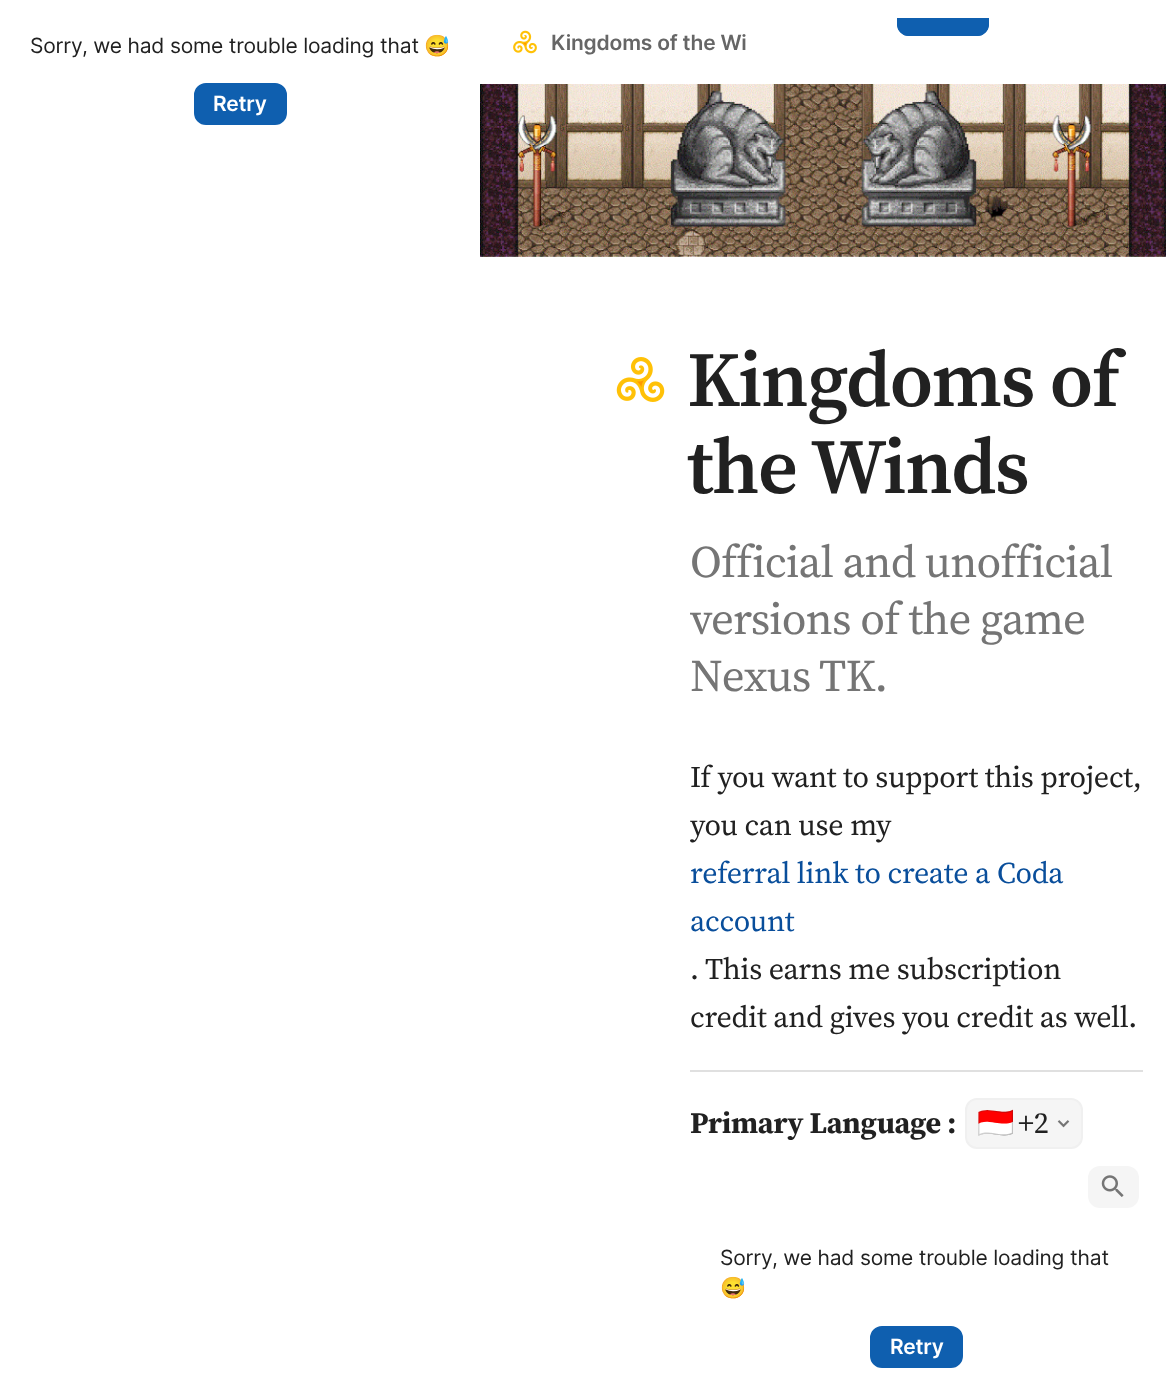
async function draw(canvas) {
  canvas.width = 1166;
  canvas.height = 1374;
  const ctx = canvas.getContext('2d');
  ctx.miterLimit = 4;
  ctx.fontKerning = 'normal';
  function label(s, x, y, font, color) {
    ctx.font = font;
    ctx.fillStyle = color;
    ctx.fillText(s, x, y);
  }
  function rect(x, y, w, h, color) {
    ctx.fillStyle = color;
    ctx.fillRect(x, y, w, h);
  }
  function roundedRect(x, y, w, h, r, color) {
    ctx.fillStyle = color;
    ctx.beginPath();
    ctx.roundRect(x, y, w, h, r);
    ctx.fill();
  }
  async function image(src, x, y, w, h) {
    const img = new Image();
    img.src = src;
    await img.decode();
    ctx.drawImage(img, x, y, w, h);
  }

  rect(0, 0, 1166, 1374, '#fff');
  ctx.letterSpacing = '-0.2px';
  label('Sorry, we had some trouble loading that', 30, 53, '21px Inter', '#212121');
  label('😅', 424, 53, '21px Noto Color Emoji', '#212121');
  ctx.fillStyle = '#0f5faf';
  ctx.beginPath();
  ctx.roundRect(195, 84, 91, 40, 11);
  ctx.fill();
  ctx.strokeStyle = '#0f5faf';
  ctx.lineWidth = 2;
  ctx.stroke();
  label('Retry', 213, 111, '600 21px Inter', '#fff');
  ctx.fillStyle = '#0f5faf';
  ctx.beginPath();
  ctx.roundRect(897, 18, 92, 18, [0, 0, 12, 12]);
  ctx.fill();
  ctx.save();
  ctx.beginPath();
  ctx.rect(746, 18, 394, 48);
  ctx.clip();
  ctx.beginPath();
  ctx.roundRect(898, -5, 90, 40, 11);
  ctx.stroke();
  ctx.restore();
  await image('assets/img1.png', 513, 30, 24, 24);
  label('Kingdoms of the Wi', 551, 50, '600 21px Inter', '#666');
  await image('assets/img2.png', 480, 84, 686, 173);
  await image('assets/img3.png', 616, 357, 49, 45);
  ctx.letterSpacing = '-1.5px';
  label('Kingdoms of', 687, 406, '600 78px "Source Serif 4"', '#212121');
  label('the Winds', 687, 493, '600 78px "Source Serif 4"', '#212121');
  ctx.letterSpacing = '-0.9px';
  label('Official and unofficial', 690, 577, '45px "Source Serif 4"', '#757575');
  label('versions of the game', 690, 634, '45px "Source Serif 4"', '#757575');
  label('Nexus TK.', 690, 691, '45px "Source Serif 4"', '#757575');
  ctx.letterSpacing = '-0.25px';
  label('If you want to support this project,', 690, 787, '30px "Source Serif 4"', '#212121');
  label('you can use my', 690, 835, '30px "Source Serif 4"', '#212121');
  label('referral link to create a Coda', 690, 883, '30px "Source Serif 4"', '#094e9b');
  label('account', 690, 931, '30px "Source Serif 4"', '#094e9b');
  label('. This earns me subscription', 690, 979, '30px "Source Serif 4"', '#212121');
  label('credit and gives you credit as well.', 690, 1027, '30px "Source Serif 4"', '#212121');
  rect(690, 1070, 453, 2, '#e0e0e0');
  label('Primary Language :', 690, 1133, 'bold 30px "Source Serif 4"', '#212121');
  ctx.fillStyle = '#f5f5f5';
  ctx.beginPath();
  ctx.roundRect(966, 1099, 116, 49, 11);
  ctx.fill();
  ctx.strokeStyle = '#f0f0f0';
  ctx.stroke();
  ctx.save();
  ctx.beginPath();
  ctx.rect(978, 1100, 71, 48);
  ctx.clip();
  label('🇮🇩', 977, 1133, '30px Noto Color Emoji', '#212121');
  ctx.restore();
  label('+2', 1018, 1133, '30px "Source Serif 4"', '#212121');
  await image('assets/img4.png', 1057, 1120, 13, 8);
  roundedRect(1088, 1166, 51, 42, 12, '#f5f5f5');
  await image('assets/img5.png', 1101, 1175, 23, 22);
  ctx.letterSpacing = '-0.2px';
  label('Sorry, we had some trouble loading that', 720, 1265, '21px Inter', '#212121');
  label('😅', 720, 1295, '21px Noto Color Emoji', '#212121');
  ctx.fillStyle = '#0f5faf';
  ctx.beginPath();
  ctx.roundRect(871, 1327, 91, 40, 11);
  ctx.fill();
  ctx.strokeStyle = '#0f5faf';
  ctx.stroke();
  label('Retry', 890, 1354, '600 21px Inter', '#fff');
}

draw(document.querySelector('canvas'));
